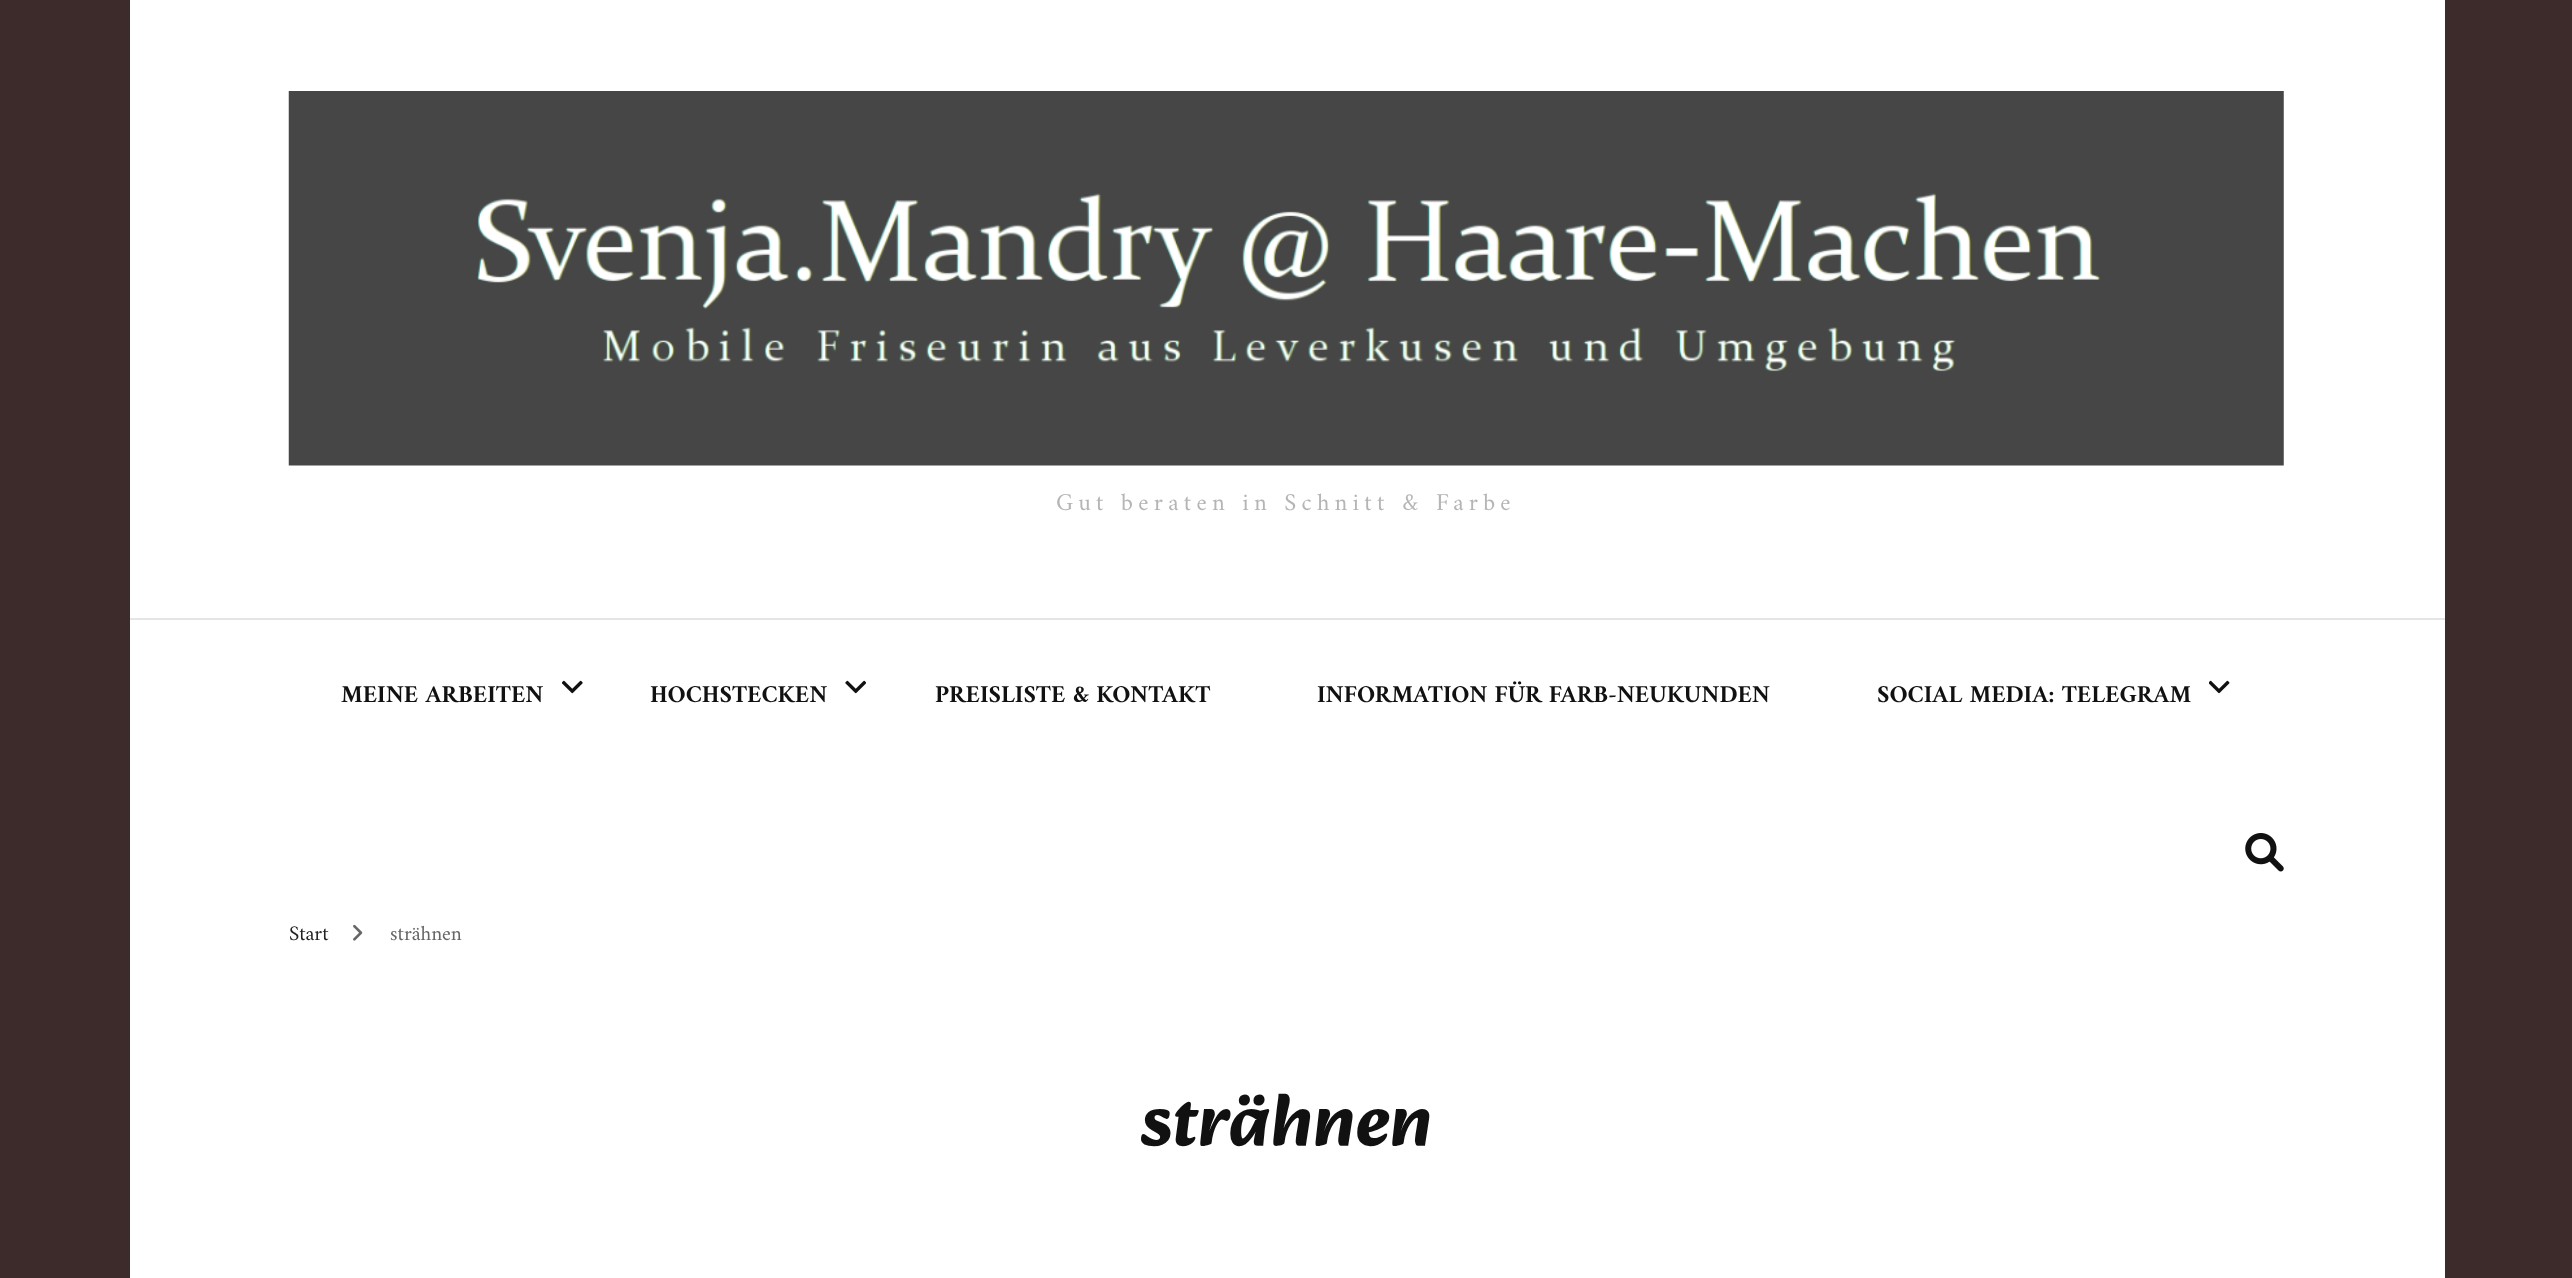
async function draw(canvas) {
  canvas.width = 2572;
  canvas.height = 1278;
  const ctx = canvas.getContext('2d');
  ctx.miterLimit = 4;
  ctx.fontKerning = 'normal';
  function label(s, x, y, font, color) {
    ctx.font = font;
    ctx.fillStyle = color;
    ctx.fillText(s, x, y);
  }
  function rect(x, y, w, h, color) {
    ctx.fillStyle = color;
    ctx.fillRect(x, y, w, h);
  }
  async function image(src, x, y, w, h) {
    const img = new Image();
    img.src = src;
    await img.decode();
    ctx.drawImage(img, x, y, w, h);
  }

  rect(0, 0, 2572, 1278, '#3d2a2a');
  rect(130, 0, 2315, 1278, '#fff');
  await image('assets/img1.png', 288, 91, 1996, 375);
  ctx.letterSpacing = '5.25px';
  label('Gut beraten in Schnitt & Farbe', 1056, 510, '24.5px Amiri', '#b5b5b5');
  rect(130, 618, 2315, 2, '#e5e5e5');
  ctx.letterSpacing = '0px';
  label('MEINE ARBEITEN', 341, 702, 'bold 24.5px Amiri', '#111');
  await image('assets/img2.png', 562, 680, 21, 14);
  label('HOCHSTECKEN', 650, 702, 'bold 24.5px Amiri', '#111');
  await image('assets/img3.png', 845, 680, 21, 14);
  label('PREISLISTE & KONTAKT', 935, 702, 'bold 24.5px Amiri', '#111');
  label('INFORMATION FÜR FARB-NEUKUNDEN', 1317, 702, 'bold 24.5px Amiri', '#111');
  label('SOCIAL MEDIA: TELEGRAM', 1877, 702, 'bold 24.5px Amiri', '#111');
  await image('assets/img4.png', 2209, 680, 21, 14);
  await image('assets/img5.png', 2245, 833, 39, 39);
  label('Start', 289, 940, '21px Amiri', '#222');
  await image('assets/img6.png', 353, 924, 10, 17);
  label('strähnen', 390, 940, '21px Amiri', '#666');
  label('strähnen', 1141, 1145, 'bold 73.5px Alkatra', '#111');
}

draw(document.querySelector('canvas'));
